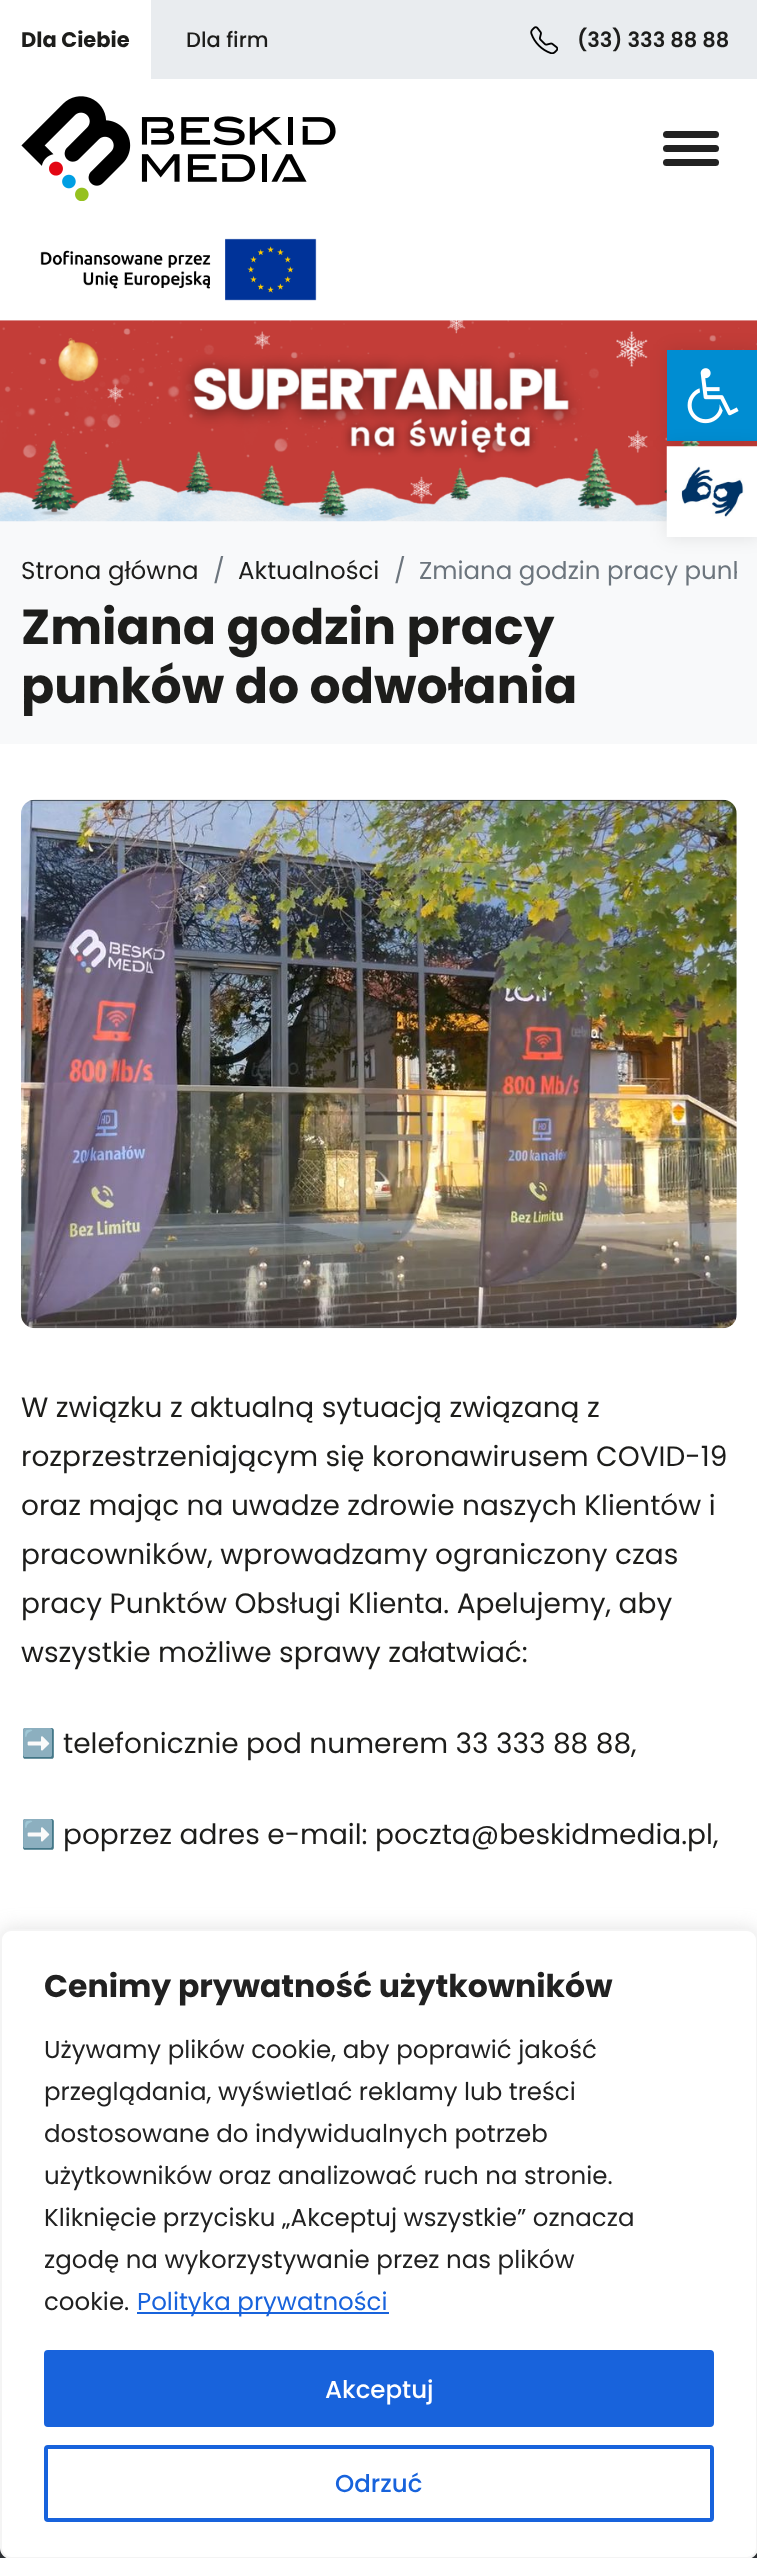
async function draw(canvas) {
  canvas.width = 757;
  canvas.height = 2558;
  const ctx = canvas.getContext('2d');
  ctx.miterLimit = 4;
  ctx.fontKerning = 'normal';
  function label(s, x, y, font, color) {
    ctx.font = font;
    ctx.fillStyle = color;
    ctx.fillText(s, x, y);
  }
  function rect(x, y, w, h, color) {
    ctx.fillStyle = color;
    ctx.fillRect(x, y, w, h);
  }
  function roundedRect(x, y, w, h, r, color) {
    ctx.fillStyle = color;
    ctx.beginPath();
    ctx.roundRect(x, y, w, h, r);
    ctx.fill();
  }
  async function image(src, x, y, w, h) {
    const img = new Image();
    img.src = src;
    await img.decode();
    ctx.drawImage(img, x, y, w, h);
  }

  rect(0, 0, 757, 2558, '#fff');
  rect(151, 0, 606, 79, '#e9ecef');
  label('Dla Ciebie', 21, 47, 'bold 21px Poppins', '#1d1d1b');
  label('Dla firm', 186, 47, '500 21px Poppins', '#1d1d1b');
  await image('assets/img1.png', 530, 26, 28, 28);
  label('(33) 333 88 88', 577, 47, '600 21px Poppins', '#1d1d1b');
  await image('assets/img2.png', 21, 96, 315, 105);
  roundedRect(663, 131, 56, 7, 3.5, '#222');
  roundedRect(663, 145, 56, 7, 3.5, '#222');
  roundedRect(663, 159, 56, 7, 3.5, '#222');
  await image('assets/img3.png', 40, 238, 277, 63);
  rect(0, 320, 757, 424, '#f8f9fa');
  await image('assets/img6.png', 0, 320, 757, 202);
  ctx.fillStyle = '#0000001a';
  ctx.filter = 'blur(9px)';
  ctx.beginPath();
  ctx.rect(667, 350, 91, 91);
  ctx.fill();
  ctx.filter = 'none';
  rect(667, 350, 90, 91, '#008dd2');
  await image('assets/img4.png', 687, 368, 52, 56);
  ctx.fillStyle = '#0000001a';
  ctx.filter = 'blur(9px)';
  ctx.beginPath();
  ctx.rect(667, 446, 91, 91);
  ctx.fill();
  ctx.filter = 'none';
  await image('assets/img5.png', 666, 446, 91, 91);
  label('Strona główna', 21, 579, '24.5px Poppins', '#1d1d1b');
  label('/', 213, 579, '24.5px Poppins', '#6c757d');
  label('Aktualności', 238, 579, '24.5px Poppins', '#1d1d1b');
  label('/', 394, 579, '24.5px Poppins', '#6c757d');
  ctx.save();
  ctx.beginPath();
  ctx.rect(21, 550, 716, 42);
  ctx.clip();
  label('Zmiana godzin pracy punk', 419, 579, '24.5px Poppins', '#6c757d');
  ctx.restore();
  label('Zmiana godzin pracy', 21, 644, 'bold 49px Poppins', '#1d1d1b');
  label('punków do odwołania', 21, 703, 'bold 49px Poppins', '#1d1d1b');
  await image('assets/img7.png', 21, 799, 716, 530);
  label('W związku z aktualną sytuacją związaną z', 21, 1417, '28px Poppins', '#1d1d1b');
  label('rozprzestrzeniającym się koronawirusem COVID-19', 21, 1466, '28px Poppins', '#1d1d1b');
  label('oraz mając na uwadze zdrowie naszych Klientów i', 21, 1515, '28px Poppins', '#1d1d1b');
  label('pracowników, wprowadzamy ograniczony czas', 21, 1564, '28px Poppins', '#1d1d1b');
  label('pracy Punktów Obsługi Klienta. Apelujemy, aby', 21, 1613, '28px Poppins', '#1d1d1b');
  label('wszystkie możliwe sprawy załatwiać:', 21, 1662, '28px Poppins', '#1d1d1b');
  label('➡️', 21, 1753, '28px Noto Color Emoji', '#1d1d1b');
  label('telefonicznie pod numerem 33 333 88 88,', 63, 1753, '28px Poppins', '#1d1d1b');
  label('➡️', 21, 1844, '28px Noto Color Emoji', '#1d1d1b');
  label('poprzez adres e-mail: poczta@beskidmedia.pl,', 63, 1844, '28px Poppins', '#1d1d1b');
  rect(0, 2548, 757, 10, '#212529');
  ctx.fillStyle = '#acabab4d';
  ctx.filter = 'blur(9px)';
  ctx.beginPath();
  ctx.roundRect(0, 1927, 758, 630, 11);
  ctx.fill();
  ctx.filter = 'none';
  ctx.fillStyle = '#fff';
  ctx.beginPath();
  ctx.roundRect(1, 1930, 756, 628, 10);
  ctx.fill();
  ctx.strokeStyle = '#f4f4f4';
  ctx.lineWidth = 2;
  ctx.stroke();
  label('Cenimy prywatność użytkowników', 44, 1997, 'bold 31.5px Poppins', '#212121');
  label('Używamy plików cookie, aby poprawić jakość', 44, 2058, '24.5px Poppins', '#212121');
  label('przeglądania, wyświetlać reklamy lub treści', 44, 2100, '24.5px Poppins', '#212121');
  label('dostosowane do indywidualnych potrzeb', 44, 2142, '24.5px Poppins', '#212121');
  label('użytkowników oraz analizować ruch na stronie.', 44, 2184, '24.5px Poppins', '#212121');
  label('Kliknięcie przycisku „Akceptuj wszystkie” oznacza', 44, 2226, '24.5px Poppins', '#212121');
  label('zgodę na wykorzystywanie przez nas plików', 44, 2268, '24.5px Poppins', '#212121');
  label('cookie.', 44, 2310, '24.5px Poppins', '#212121');
  rect(137, 2312, 252, 2, '#1863dc');
  label('Polityka prywatności', 137, 2310, '24.5px Poppins', '#1863dc');
  ctx.beginPath();
  ctx.roundRect(46, 2352, 666, 73, 2);
  ctx.fill();
  ctx.strokeStyle = '#1863dc';
  ctx.lineWidth = 4;
  ctx.stroke();
  label('Akceptuj', 325, 2398, '500 24.5px Poppins', '#fff');
  ctx.beginPath();
  ctx.roundRect(46, 2447, 666, 73, 2);
  ctx.stroke();
  label('Odrzuć', 335, 2492, '500 24.5px Poppins', '#1863dc');
}

draw(document.querySelector('canvas'));
